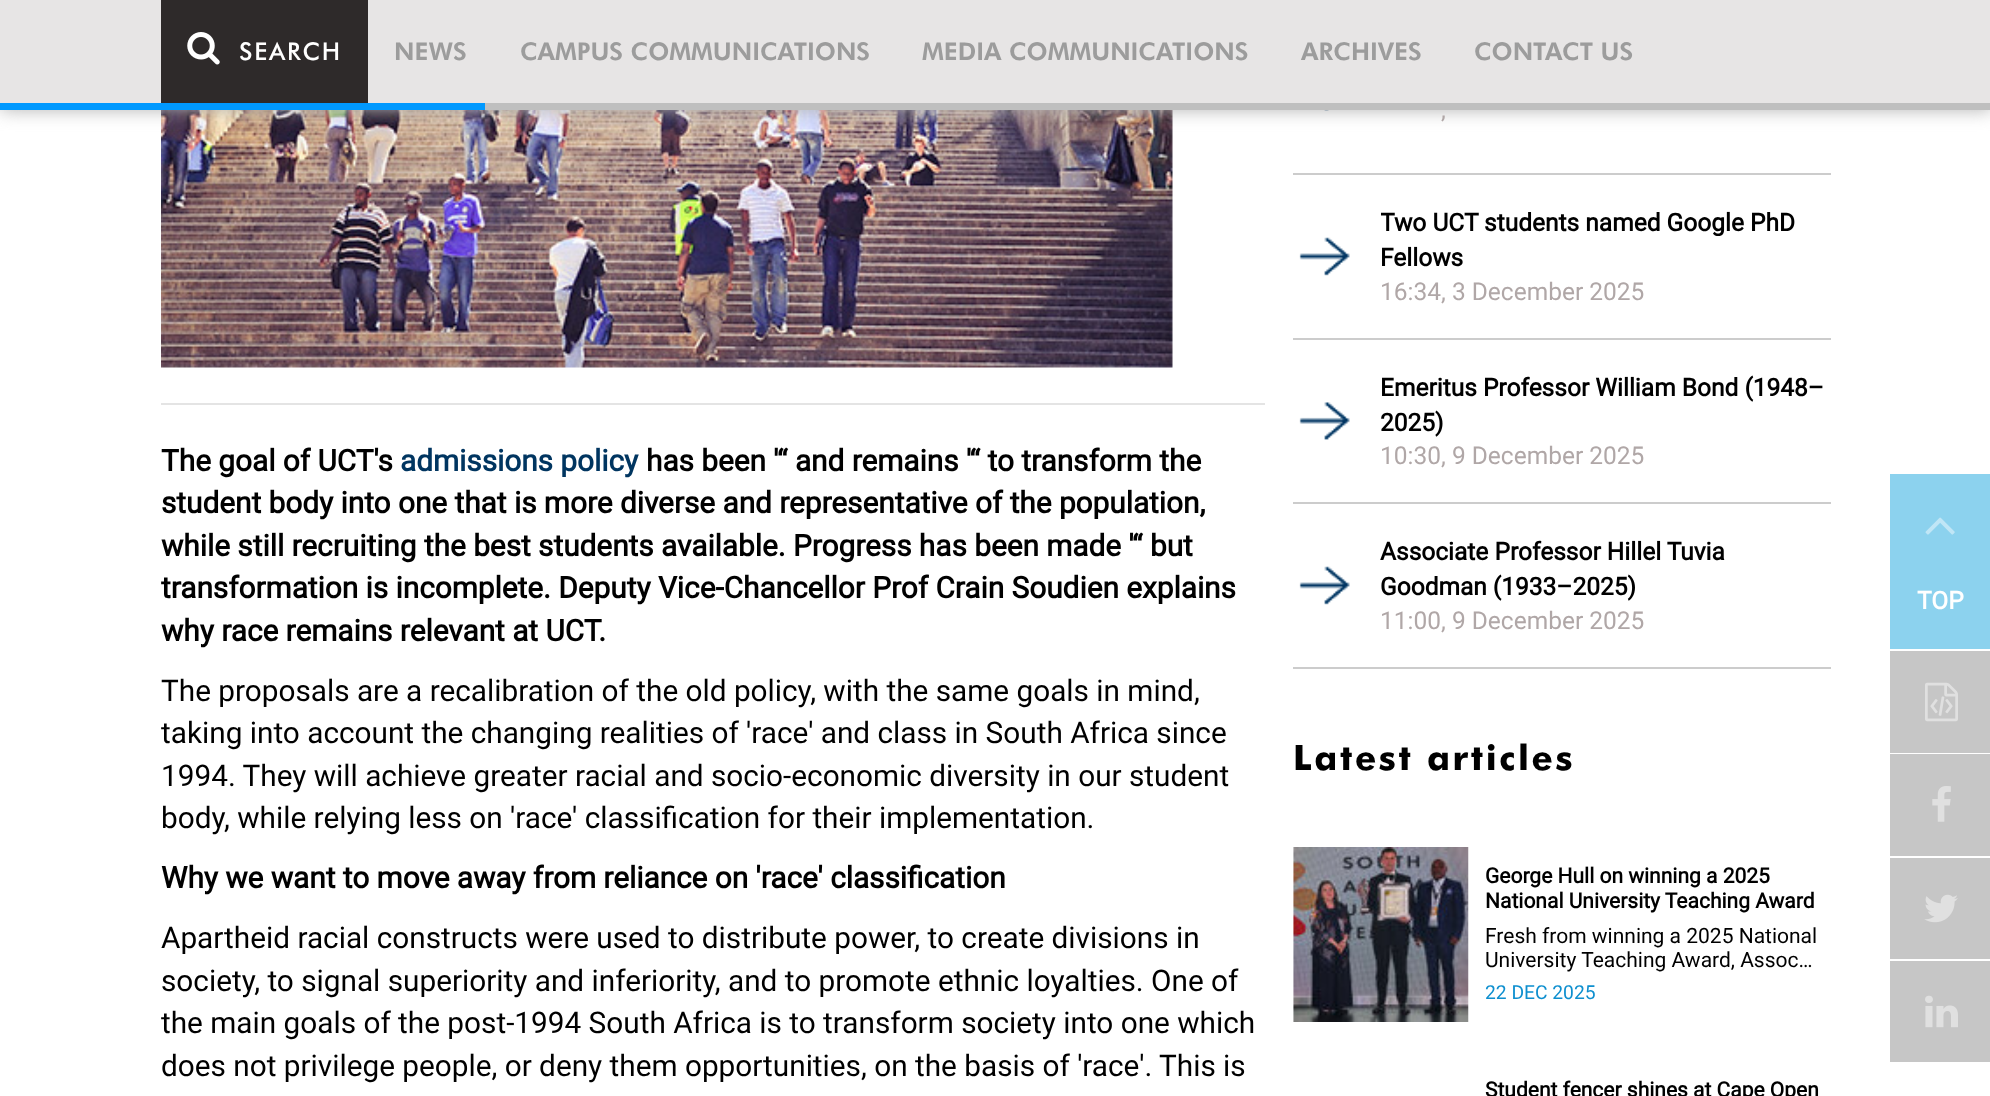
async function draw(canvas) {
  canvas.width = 1990;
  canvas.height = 1096;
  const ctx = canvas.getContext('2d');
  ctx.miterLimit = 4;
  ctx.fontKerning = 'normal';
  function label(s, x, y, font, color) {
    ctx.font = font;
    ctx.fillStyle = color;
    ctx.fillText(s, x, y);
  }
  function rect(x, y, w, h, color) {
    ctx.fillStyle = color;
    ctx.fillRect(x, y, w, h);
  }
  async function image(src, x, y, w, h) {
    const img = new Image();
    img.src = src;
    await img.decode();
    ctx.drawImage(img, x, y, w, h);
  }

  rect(0, 0, 1990, 1096, '#fff');
  await image('assets/img2.png', 161, 110, 1012, 258);
  await image('assets/img3.png', 1324, 110, 7, 1);
  ctx.fillStyle = '#b3b3b3';
  ctx.filter = 'blur(9px)';
  ctx.beginPath();
  ctx.rect(0, 0, 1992, 110);
  ctx.fill();
  ctx.filter = 'none';
  rect(0, 0, 1990, 103, '#e7e5e5');
  rect(161, 0, 207, 103, '#2e2a2a');
  await image('assets/img1.png', 187, 32, 33, 33);
  ctx.letterSpacing = '1.75px';
  label('SEARCH', 239, 60, '500 24.5px Futura', '#fff');
  ctx.letterSpacing = '0px';
  label('NEWS', 394, 60, '900 24.5px Futura', '#9c9c9c');
  label('CAMPUS COMMUNICATIONS', 520, 60, '900 24.5px Futura', '#9c9c9c');
  label('MEDIA COMMUNICATIONS', 922, 60, '900 24.5px Futura', '#9c9c9c');
  label('ARCHIVES', 1301, 60, '900 24.5px Futura', '#9c9c9c');
  label('CONTACT US', 1474, 60, '900 24.5px Futura', '#9c9c9c');
  rect(485, 103, 1505, 7, '#bfbfbf');
  rect(0, 103, 485, 7, '#09f');
  rect(161, 403, 1104, 2, '#e4e4e4');
  label('The goal of UCT\'s', 161, 471, 'bold 29.75px Roboto', '#000');
  label('admissions policy', 400, 471, 'bold 29.75px Roboto', '#003560');
  label('has been \'“ and remains \'“ to transform the', 646, 471, 'bold 29.75px Roboto', '#000');
  label('student body into one that is more diverse and representative of the population,', 161, 513, 'bold 29.75px Roboto', '#000');
  label('while still recruiting the best students available. Progress has been made \'“ but', 161, 556, 'bold 29.75px Roboto', '#000');
  label('transformation is incomplete. Deputy Vice-Chancellor Prof Crain Soudien explains', 161, 598, 'bold 29.75px Roboto', '#000');
  label('why race remains relevant at UCT.', 161, 641, 'bold 29.75px Roboto', '#000');
  label('The proposals are a recalibration of the old policy, with the same goals in mind,', 161, 701, '29.75px Roboto', '#000');
  label('taking into account the changing realities of \'race\' and class in South Africa since', 161, 743, '29.75px Roboto', '#000');
  label('1994. They will achieve greater racial and socio-economic diversity in our student', 161, 786, '29.75px Roboto', '#000');
  label('body, while relying less on \'race\' classification for their implementation.', 161, 828, '29.75px Roboto', '#000');
  label('Why we want to move away from reliance on \'race\' classification', 161, 888, 'bold 29.75px Roboto', '#000');
  label('Apartheid racial constructs were used to distribute power, to create divisions in', 161, 948, '29.75px Roboto', '#000');
  label('society, to signal superiority and inferiority, and to promote ethnic loyalties. One of', 161, 991, '29.75px Roboto', '#000');
  label('the main goals of the post-1994 South Africa is to transform society into one which', 161, 1033, '29.75px Roboto', '#000');
  label('does not privilege people, or deny them opportunities, on the basis of \'race\'. This is', 161, 1076, '29.75px Roboto', '#000');
  rect(1293, 173, 538, 2, '#ccc');
  label(',', 1441, 118, '24.5px Roboto', '#b0a7a7');
  await image('assets/img4.png', 1299, 237, 51, 39);
  rect(1293, 338, 538, 2, '#ccc');
  ctx.save();
  ctx.beginPath();
  ctx.rect(1381, 205, 450, 68);
  ctx.clip();
  label('Two UCT students named Google PhD', 1380, 231, 'bold 24.5px Roboto', '#000');
  ctx.restore();
  label('Fellows', 1380, 266, 'bold 24.5px Roboto', '#000');
  label('16:34, 3 December 2025', 1380, 300, '24.5px Roboto', '#b0a7a7');
  await image('assets/img5.png', 1299, 402, 51, 38);
  rect(1293, 502, 538, 2, '#ccc');
  label('Emeritus Professor William Bond (1948–', 1380, 396, 'bold 24.5px Roboto', '#000');
  label('2025)', 1380, 431, 'bold 24.5px Roboto', '#000');
  label('10:30, 9 December 2025', 1380, 464, '24.5px Roboto', '#b0a7a7');
  await image('assets/img6.png', 1299, 566, 51, 39);
  rect(1293, 667, 538, 2, '#ccc');
  label('Associate Professor Hillel Tuvia', 1380, 560, 'bold 24.5px Roboto', '#000');
  label('Goodman (1933–2025)', 1380, 595, 'bold 24.5px Roboto', '#000');
  label('11:00, 9 December 2025', 1380, 629, '24.5px Roboto', '#b0a7a7');
  ctx.letterSpacing = '2.6px';
  label('Latest articles', 1293, 770, 'bold 35px Futura', '#000');
  await image('assets/img7.png', 1293, 847, 176, 175);
  ctx.letterSpacing = '0px';
  label('George Hull on winning a 2025', 1485, 883, 'bold 21px Roboto', '#000');
  label('National University Teaching Award', 1485, 908, 'bold 21px Roboto', '#000');
  label('Fresh from winning a 2025 National', 1485, 943, '21px Roboto', '#000');
  label('University Teaching Award, Assoc…', 1485, 967, '21px Roboto', '#000');
  label('22 DEC 2025', 1485, 999, '19.25px Roboto', '#0e8fcf');
  label('Student fencer shines at Cape Open', 1485, 1097, 'bold 21px Roboto', '#000');
  rect(1890, 474, 100, 175, '#8cd2ee');
  await image('assets/img8.png', 1925, 517, 30, 18);
  label('TOP', 1917, 609, 'bold 24.5px Roboto', '#fff');
  rect(1890, 651, 100, 102, '#c6c6c6');
  await image('assets/img9.png', 1925, 682, 33, 40);
  rect(1890, 754, 100, 102, '#c6c6c6');
  await image('assets/img10.png', 1932, 786, 19, 36);
  rect(1890, 858, 100, 101, '#c6c6c6');
  await image('assets/img11.png', 1924, 894, 34, 29);
  rect(1890, 961, 100, 101, '#c6c6c6');
  await image('assets/img12.png', 1925, 995, 33, 33);
}

draw(document.querySelector('canvas'));
